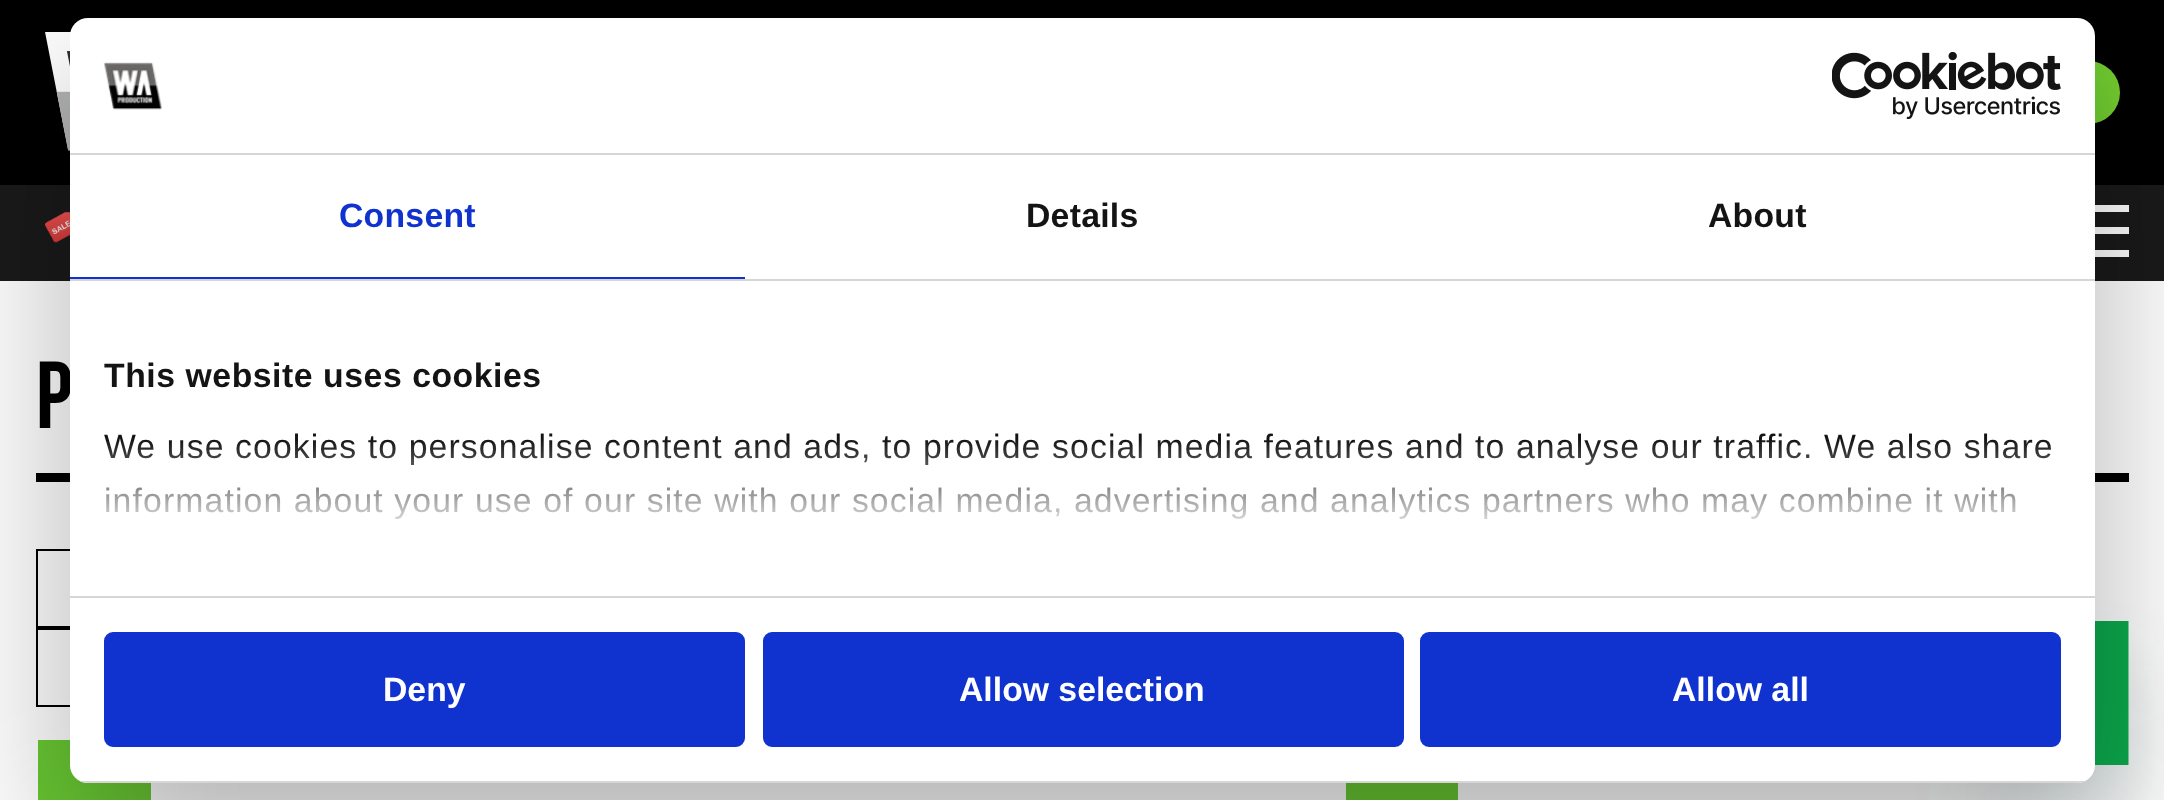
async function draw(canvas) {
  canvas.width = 2164;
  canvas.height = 800;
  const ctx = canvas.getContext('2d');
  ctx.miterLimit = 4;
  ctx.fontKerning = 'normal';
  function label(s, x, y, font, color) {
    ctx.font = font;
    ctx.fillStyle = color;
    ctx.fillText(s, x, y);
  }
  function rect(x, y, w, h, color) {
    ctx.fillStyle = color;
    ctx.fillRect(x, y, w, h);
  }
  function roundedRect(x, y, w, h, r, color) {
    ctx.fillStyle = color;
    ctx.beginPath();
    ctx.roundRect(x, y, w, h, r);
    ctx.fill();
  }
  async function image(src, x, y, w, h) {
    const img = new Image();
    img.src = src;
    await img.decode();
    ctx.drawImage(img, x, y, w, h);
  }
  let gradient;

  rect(0, 0, 2164, 800, '#fff');
  rect(0, 0, 2164, 185, '#000');
  await image('assets/img1.png', 45, 32, 26, 119);
  gradient = ctx.createLinearGradient(1816, 92, 2120, 92);
  gradient.addColorStop(0, '#00a651');
  gradient.addColorStop(1, '#76cd2f');
  ctx.fillStyle = gradient;
  ctx.beginPath();
  ctx.roundRect(1816, 61, 304, 63, 31.5);
  ctx.fill();
  rect(0, 185, 2164, 96, '#1a1a1a');
  await image('assets/img2.png', 45, 211, 25, 32);
  rect(2095, 227, 34, 7, '#fff');
  rect(2095, 205, 34, 7, '#fff');
  rect(2095, 250, 34, 7, '#fff');
  rect(36, 473, 2093, 9, '#000');
  label('P', 36, 428, '95px "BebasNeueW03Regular"', '#000');
  ctx.strokeStyle = '#000';
  ctx.lineWidth = 2;
  ctx.strokeRect(37, 550, 302, 77);
  ctx.strokeRect(37, 629, 302, 77);
  rect(38, 740, 113, 60, '#69c933');
  rect(1346, 783, 112, 17, '#69c933');
  ctx.fillStyle = '#17494d26';
  ctx.filter = 'blur(34px)';
  ctx.beginPath();
  ctx.rect(1985, 666, 144, 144);
  ctx.fill();
  ctx.filter = 'none';
  await image('assets/img5.png', 2095, 621, 34, 144);
  ctx.fillStyle = '#0000004d';
  ctx.filter = 'blur(76.5px)';
  ctx.beginPath();
  ctx.roundRect(70, 90, 2025, 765, 18);
  ctx.fill();
  ctx.filter = 'none';
  roundedRect(70, 18, 2025, 765, 18, '#fff');
  rect(70, 153, 2025, 2, '#d6d6d6');
  await image('assets/img3.png', 103, 62, 59, 48);
  await image('assets/img4.png', 1832, 52, 229, 67);
  rect(70, 279, 2025, 2, '#d6d6d6');
  rect(70, 277, 675, 2, '#1032cf');
  ctx.letterSpacing = '0.25px';
  label('Consent', 339, 227, 'bold 33.75px Liberation Sans', '#1032cf');
  label('Details', 1026, 227, 'bold 33.75px Liberation Sans', '#141414');
  label('About', 1708, 227, 'bold 33.75px Liberation Sans', '#141414');
  rect(70, 596, 2025, 2, '#d6d6d6');
  ctx.letterSpacing = '0.55px';
  label('This website uses cookies', 104, 387, 'bold 33.75px Liberation Sans', '#141414');
  ctx.letterSpacing = '1.12px';
  label('We use cookies to personalise content and ads, to provide social media features and to analyse our traffic. We also share', 104, 458, '33.75px Liberation Sans', '#141414');
  label('information about your use of our site with our social media, advertising and analytics partners who may combine it with', 104, 512, '33.75px Liberation Sans', '#141414');
  gradient = ctx.createLinearGradient(1068, 596, 1068, 439);
  gradient.addColorStop(0, '#fff');
  gradient.addColorStop(0.5, '#ffffffcc');
  gradient.addColorStop(1, '#ffffff00');
  ctx.fillStyle = gradient;
  ctx.fillRect(105, 441, 1947, 78);
  ctx.save();
  ctx.beginPath();
  ctx.roundRect(70, 18, 2025, 765, 18);
  ctx.clip();
  rect(80, 781, 2005, 2, '#d6d6d6');
  ctx.restore();
  ctx.fillStyle = '#1032cf';
  ctx.beginPath();
  ctx.roundRect(106.5, 634.5, 636, 110, 6.5);
  ctx.fill();
  ctx.strokeStyle = '#1032cf';
  ctx.lineWidth = 5;
  ctx.stroke();
  ctx.letterSpacing = '0px';
  label('Deny', 383, 701, 'bold 33.75px Liberation Sans', '#fff');
  ctx.fillStyle = '#1032cf';
  ctx.beginPath();
  ctx.roundRect(765.5, 634.5, 636, 110, 6.5);
  ctx.fill();
  ctx.stroke();
  label('Allow selection', 959, 701, 'bold 33.75px Liberation Sans', '#fff');
  ctx.fillStyle = '#1032cf';
  ctx.beginPath();
  ctx.roundRect(1422.5, 634.5, 636, 110, 6.5);
  ctx.fill();
  ctx.stroke();
  label('Allow all', 1672, 701, 'bold 33.75px Liberation Sans', '#fff');
}

draw(document.querySelector('canvas'));
